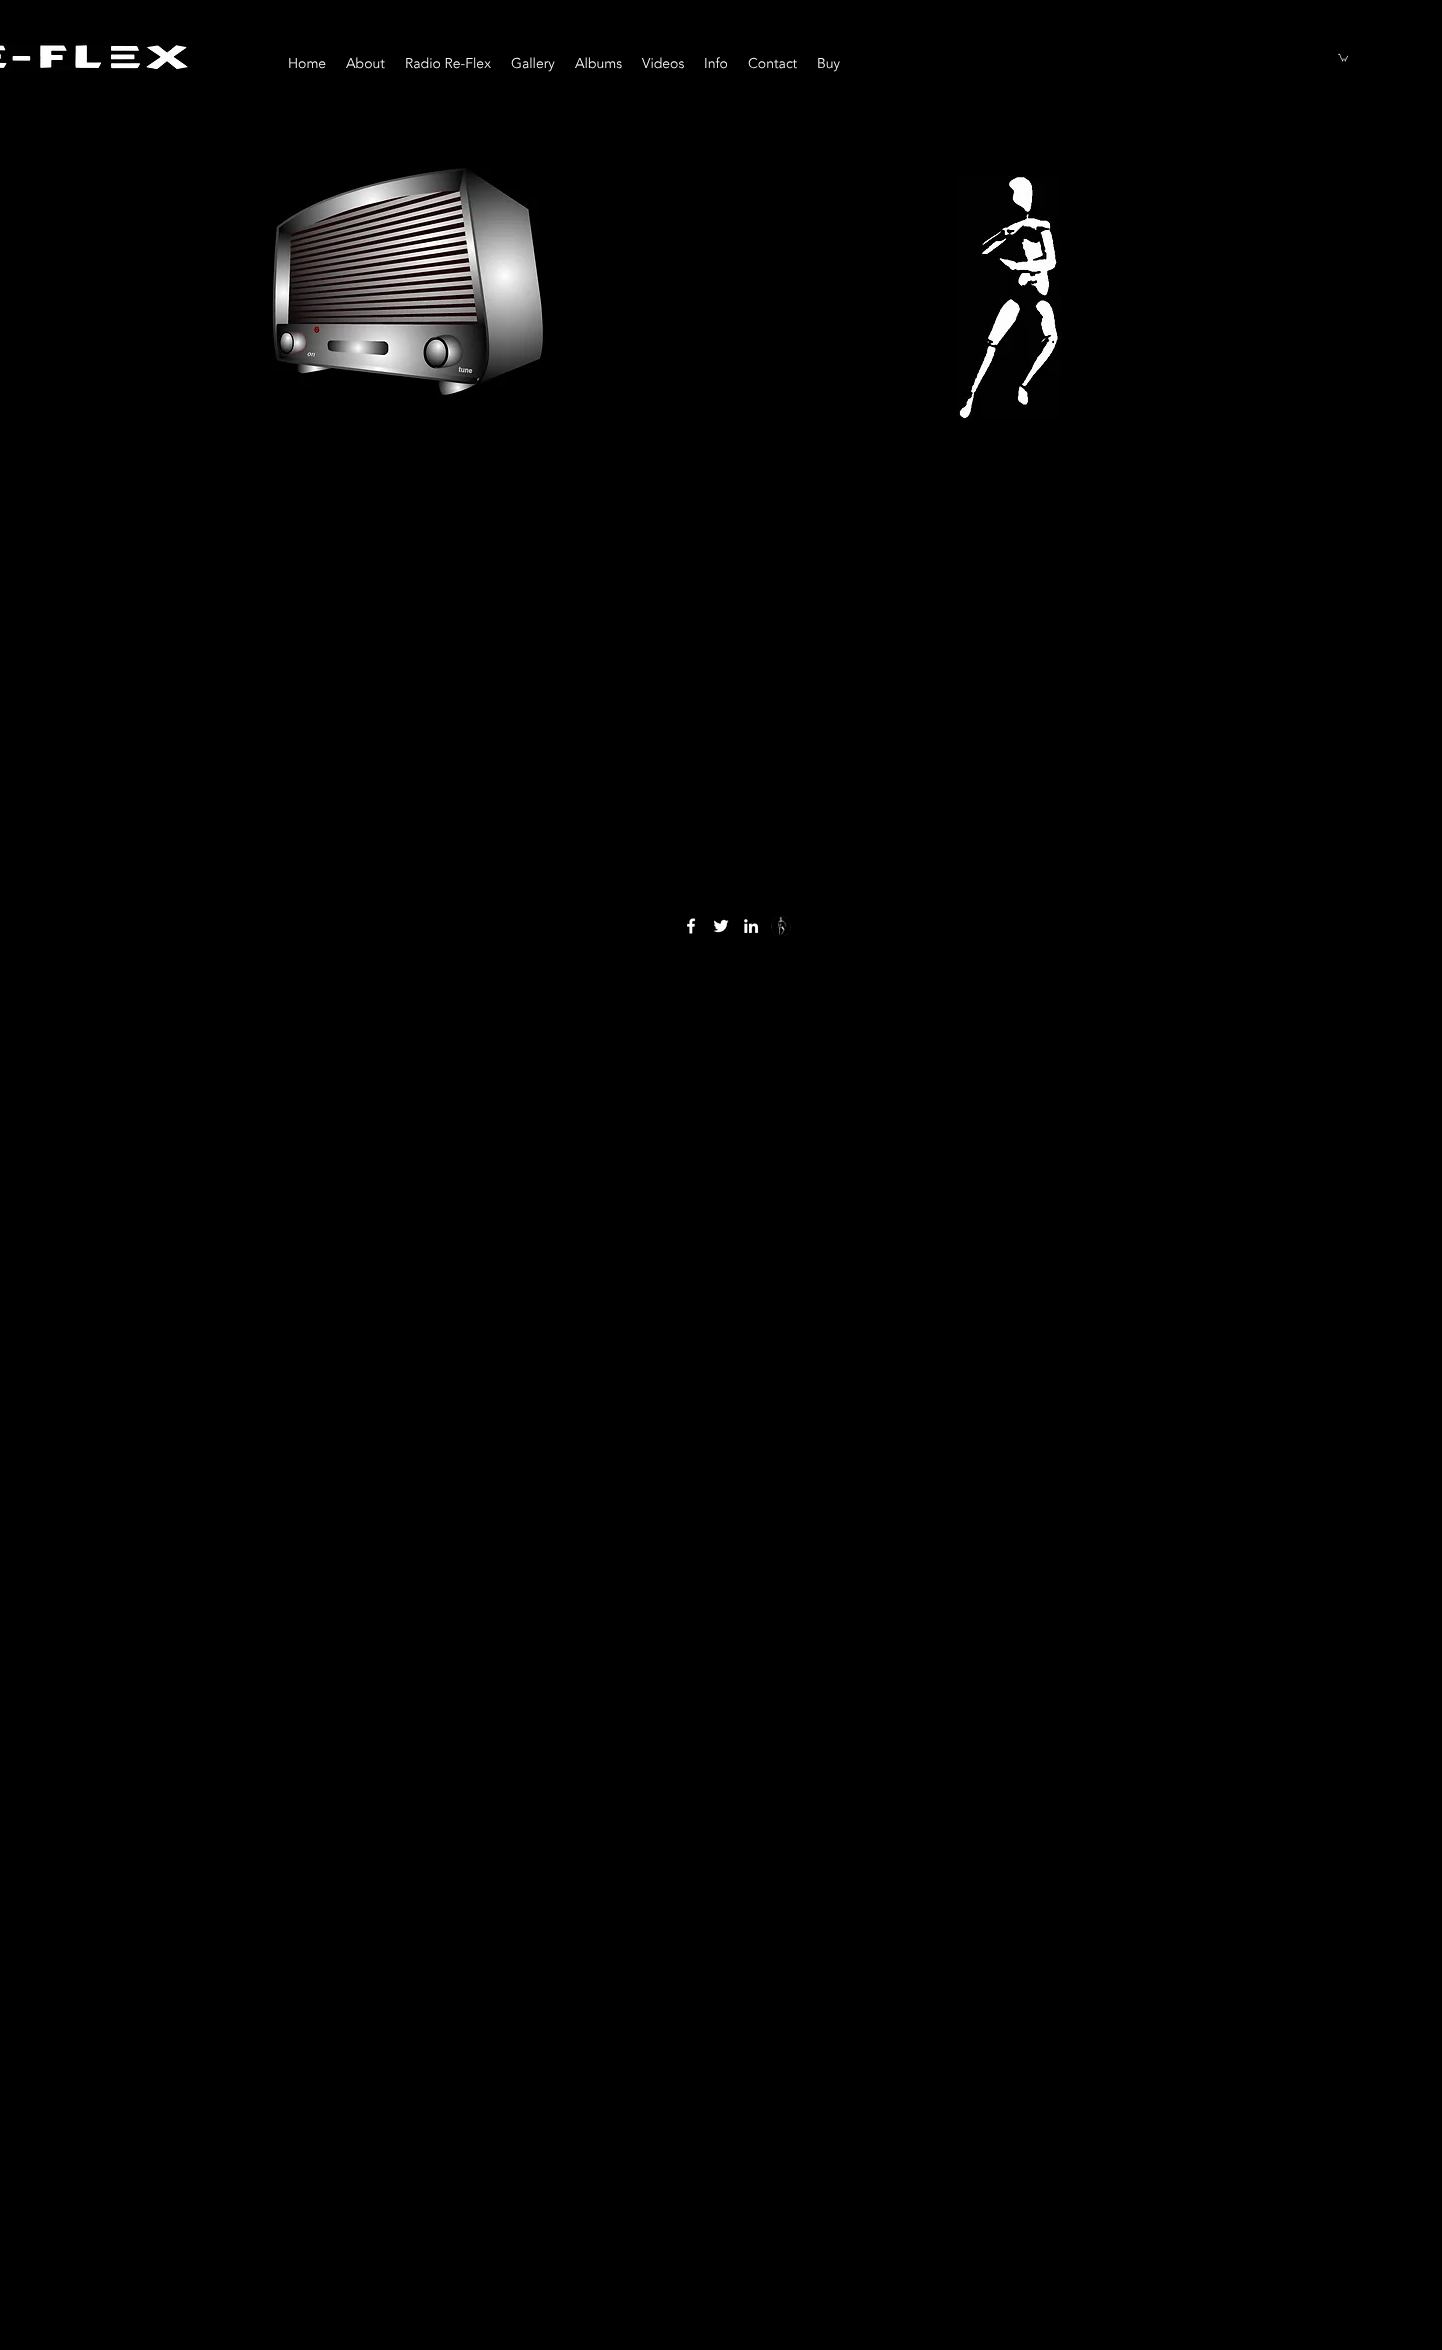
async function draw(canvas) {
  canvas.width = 1442;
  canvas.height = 2350;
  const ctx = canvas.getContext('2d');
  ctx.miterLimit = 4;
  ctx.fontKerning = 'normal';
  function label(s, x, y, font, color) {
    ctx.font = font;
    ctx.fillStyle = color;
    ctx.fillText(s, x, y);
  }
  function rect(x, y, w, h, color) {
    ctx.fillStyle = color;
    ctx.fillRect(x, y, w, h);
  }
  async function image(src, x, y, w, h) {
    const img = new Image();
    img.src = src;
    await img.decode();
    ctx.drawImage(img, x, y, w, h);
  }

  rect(0, 0, 1442, 2350, '#000');
  await image('assets/img1.png', 0, 43, 189, 28);
  label('Home', 288, 68, '300 14px "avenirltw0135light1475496"', '#fff');
  label('About', 346, 68, '300 14px "avenirltw0135light1475496"', '#fff');
  label('Radio Re-Flex', 405, 68, '300 14px "avenirltw0135light1475496"', '#fff');
  label('Gallery', 511, 68, '300 14px "avenirltw0135light1475496"', '#fff');
  label('Albums', 575, 68, '300 14px "avenirltw0135light1475496"', '#fff');
  label('Videos', 642, 68, '300 14px "avenirltw0135light1475496"', '#fff');
  label('Info', 704, 68, '300 14px "avenirltw0135light1475496"', '#fff');
  label('Contact', 748, 68, '300 14px "avenirltw0135light1475496"', '#fff');
  label('Buy', 817, 68, '300 14px "avenirltw0135light1475496"', '#fff');
  await image('assets/img2.png', 1338, 53, 10, 9);
  await image('assets/img3.png', 272, 168, 274, 228);
  await image('assets/img4.png', 957, 176, 104, 244);
  await image('assets/img5.png', 687, 918, 9, 16);
  await image('assets/img6.png', 713, 919, 16, 14);
  await image('assets/img7.png', 744, 919, 15, 15);
  await image('assets/img8.png', 771, 916, 20, 20);
}

draw(document.querySelector('canvas'));
